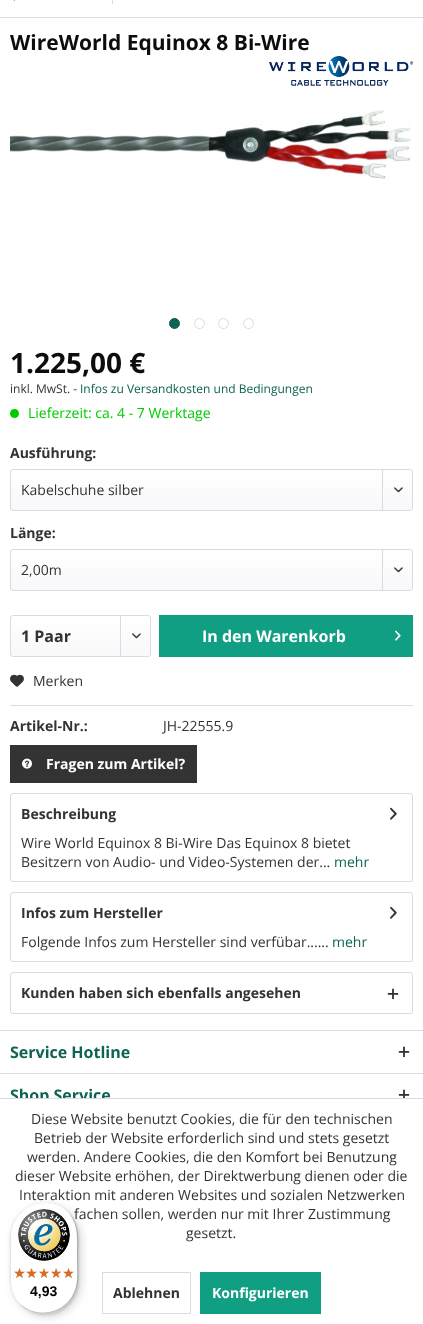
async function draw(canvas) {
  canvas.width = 423;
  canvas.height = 1324;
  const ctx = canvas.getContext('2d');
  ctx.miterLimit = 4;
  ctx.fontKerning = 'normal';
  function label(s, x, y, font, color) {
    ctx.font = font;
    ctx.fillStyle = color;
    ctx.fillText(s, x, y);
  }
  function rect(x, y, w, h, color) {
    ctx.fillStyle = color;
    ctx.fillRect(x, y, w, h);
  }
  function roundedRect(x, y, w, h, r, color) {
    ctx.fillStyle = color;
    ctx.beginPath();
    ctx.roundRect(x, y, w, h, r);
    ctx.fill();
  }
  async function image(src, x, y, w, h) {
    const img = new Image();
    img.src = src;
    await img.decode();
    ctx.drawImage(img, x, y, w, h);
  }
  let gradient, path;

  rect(0, 0, 423, 1324, '#fff');
  rect(0, 17, 423, 1, '#dadae5');
  await image('assets/img1.png', 13, 0, 2, 1);
  rect(112, 0, 1, 4, '#dadae5');
  label('WireWorld Equinox 8 Bi-Wire', 10, 50, 'bold 21px Open Sans', '#0d0d0d');
  await image('assets/img2.png', 269, 56, 144, 30);
  await image('assets/img3.png', 10, 110, 401, 69);
  ctx.fillStyle = '#0d6453';
  ctx.beginPath();
  ctx.arc(174.5, 323.5, 5, 0, 2 * Math.PI);
  ctx.fill();
  ctx.strokeStyle = '#0d6453';
  ctx.stroke();
  ctx.beginPath();
  ctx.arc(199.5, 323.5, 5, 0, 2 * Math.PI);
  ctx.strokeStyle = '#dadae5';
  ctx.stroke();
  ctx.beginPath();
  ctx.arc(223.5, 323.5, 5, 0, 2 * Math.PI);
  ctx.stroke();
  ctx.beginPath();
  ctx.arc(248.5, 323.5, 5, 0, 2 * Math.PI);
  ctx.stroke();
  label('1.225,00 €', 10, 373, 'bold 28px Open Sans', '#0d0d0d');
  label('inkl. MwSt. -', 10, 393, '12px Open Sans', '#333');
  label('Infos zu Versandkosten und Bedingungen', 80, 393, '12px Open Sans', '#0d6453');
  ctx.fillStyle = '#0c0';
  ctx.beginPath();
  ctx.arc(14.5, 413.5, 4.5, 0, 2 * Math.PI);
  ctx.fill();
  label('Lieferzeit: ca. 4 - 7 Werktage', 28, 418, '14px Open Sans', '#0c0');
  label('Ausführung:', 10, 458, 'bold 14px Open Sans', '#333');
  gradient = ctx.createLinearGradient(212, 470, 212, 510);
  gradient.addColorStop(0, '#fff');
  gradient.addColorStop(1, '#f8f8fa');
  ctx.fillStyle = gradient;
  ctx.beginPath();
  ctx.roundRect(11, 470, 401, 40, 2);
  ctx.fill();
  ctx.beginPath();
  ctx.roundRect(10.5, 469.5, 402, 41, 2.5);
  ctx.stroke();
  label('Kabelschuhe silber', 21, 495, '14px Open Sans', '#333');
  rect(382, 470, 1, 40, '#dadae5');
  await image('assets/img4.png', 394, 487, 9, 6);
  label('Länge:', 10, 538, 'bold 14px Open Sans', '#333');
  gradient = ctx.createLinearGradient(212, 550, 212, 590);
  gradient.addColorStop(0, '#fff');
  gradient.addColorStop(1, '#f8f8fa');
  ctx.fillStyle = gradient;
  ctx.beginPath();
  ctx.roundRect(11, 550, 401, 40, 2);
  ctx.fill();
  ctx.beginPath();
  ctx.roundRect(10.5, 549.5, 402, 41, 2.5);
  ctx.stroke();
  label('2,00m', 21, 575, '14px Open Sans', '#333');
  rect(382, 550, 1, 40, '#dadae5');
  await image('assets/img4.png', 394, 567, 9, 6);
  gradient = ctx.createLinearGradient(81, 616, 81, 656);
  gradient.addColorStop(0, '#fff');
  gradient.addColorStop(1, '#f8f8fa');
  ctx.fillStyle = gradient;
  ctx.beginPath();
  ctx.roundRect(11, 616, 139, 40, 2);
  ctx.fill();
  ctx.beginPath();
  ctx.roundRect(10.5, 615.5, 140, 41, 2.5);
  ctx.stroke();
  label('1 Paar', 21, 642, 'bold 16px Open Sans', '#333');
  rect(120, 616, 1, 40, '#dadae5');
  await image('assets/img4.png', 132, 633, 9, 6);
  rect(159, 615, 254, 42, '#109f83');
  label('In den Warenkorb', 202, 642, 'bold 16px Open Sans', '#fff');
  await image('assets/img5.png', 395, 630, 6, 11);
  rect(10, 705, 403, 1, '#dadae5');
  await image('assets/img6.png', 10, 674, 14, 13);
  label('Merken', 33, 686, '14px Open Sans', '#333');
  label('Artikel-Nr.:', 10, 731, 'bold 14px Open Sans', '#333');
  label('JH-22555.9', 163, 731, '14px Open Sans', '#333');
  rect(10, 745, 187, 38, '#333');
  await image('assets/img7.png', 22, 758, 10, 11);
  label('Fragen zum Artikel?', 46, 769, 'bold 14px Open Sans', '#fff');
  ctx.beginPath();
  ctx.roundRect(10.5, 793.5, 402, 88, 2.5);
  ctx.stroke();
  label('Beschreibung', 21, 819, 'bold 14px Open Sans', '#333');
  await image('assets/img8.png', 390, 807, 7, 13);
  label('Wire World Equinox 8 Bi-Wire Das Equinox 8 bietet', 21, 848, '14px Open Sans', '#333');
  label('Besitzern von Audio- und Video-Systemen der...', 21, 867, '14px Open Sans', '#333');
  label('mehr', 334, 867, '14px Open Sans', '#0d6453');
  ctx.beginPath();
  ctx.roundRect(10.5, 892.5, 402, 69, 2.5);
  ctx.stroke();
  label('Infos zum Hersteller', 21, 918, 'bold 14px Open Sans', '#333');
  await image('assets/img8.png', 390, 906, 7, 13);
  label('Folgende Infos zum Hersteller sind verfübar......', 21, 947, '14px Open Sans', '#333');
  label('mehr', 332, 947, '14px Open Sans', '#0d6453');
  ctx.beginPath();
  ctx.roundRect(10.5, 972.5, 402, 41, 2.5);
  ctx.stroke();
  label('Kunden haben sich ebenfalls angesehen', 21, 998, 'bold 14px Open Sans', '#333');
  await image('assets/img9.png', 387, 988, 12, 12);
  rect(0, 1030, 423, 1, '#dadae5');
  label('Service Hotline', 10, 1058, 'bold 16px Open Sans', '#0d6453');
  await image('assets/img9.png', 398, 1046, 12, 12);
  rect(0, 1073, 423, 1, '#dadae5');
  label('Shop Service', 10, 1101, 'bold 16px Open Sans', '#0d6453');
  await image('assets/img10.png', 398, 1089, 12, 9);
  rect(10, 1099, 100, 6, '#fff');
  rect(0, 1098, 423, 1, '#dadae5');
  label('Diese Website benutzt Cookies, die für den technischen', 31, 1124, '14px Open Sans', '#333');
  label('Betrieb der Website erforderlich sind und stets gesetzt', 34, 1143, '14px Open Sans', '#333');
  label('werden. Andere Cookies, die den Komfort bei Benutzung', 27, 1162, '14px Open Sans', '#333');
  label('dieser Website erhöhen, der Direktwerbung dienen oder die', 15, 1181, '14px Open Sans', '#333');
  label('Interaktion mit anderen Websites und sozialen Netzwerken', 19, 1200, '14px Open Sans', '#333');
  label('fachen sollen, werden nur mit Ihrer Zustimmung', 74, 1219, '14px Open Sans', '#333');
  label('gesetzt.', 186, 1238, '14px Open Sans', '#333');
  ctx.strokeRect(102.5, 1272.5, 88, 41);
  label('Ablehnen', 113, 1298, 'bold 14px Open Sans', '#333');
  rect(200, 1272, 121, 42, '#109f83');
  label('Konfigurieren', 212, 1298, 'bold 14px Open Sans', '#fff');
  ctx.fillStyle = '#00000026';
  ctx.filter = 'blur(4px)';
  ctx.beginPath();
  ctx.roundRect(13, 1205, 68, 112, 34);
  ctx.fill();
  ctx.filter = 'none';
  ctx.filter = 'blur(1px)';
  ctx.beginPath();
  ctx.roundRect(11, 1203, 68, 112, 34);
  ctx.fill();
  ctx.filter = 'none';
  roundedRect(10, 1202, 68, 112, 34, '#fff');
  ctx.fillStyle = '#e5e5e5';
  path = new Path2D('M45 1203C53 1203 61 1206 67 1211C50 1196 22 1202 13 1223C8 1233 10 1247 10 1258C10 1273 7 1290 19 1303C14 1297 11 1289 11 1281V1237C11 1218 26 1203 45 1203Z');
  ctx.fill(path);
  ctx.fillStyle = '#00000033';
  path = new Path2D('M21 1305C38 1320 66 1314 75 1293C80 1283 78 1269 78 1258C78 1243 81 1226 69 1213C79 1226 77 1242 77 1257C77 1268 79 1282 74 1292C66 1313 38 1319 21 1305Z');
  ctx.fill(path);
  ctx.fillStyle = '#32323233';
  path = new Path2D('M17 1301C24 1309 33 1314 44 1314C63 1314 78 1299 78 1280V1236C78 1225 73 1216 65 1209C72 1216 77 1225 77 1235V1279C77 1298 62 1313 43 1313C33 1313 24 1308 17 1301Z');
  ctx.fill(path);
  ctx.fillStyle = '#ffffff4d';
  path = new Path2D('M44 1202C63 1202 78 1217 78 1236C78 1217 62 1202 44 1202ZM78 1280C78 1298 62 1314 44 1314C63 1314 78 1299 78 1280Z');
  ctx.fill(path, 'evenodd');
  await image('assets/img11.png', 18, 1209, 52, 52);
  await image('assets/img12.png', 14, 1268, 11, 10);
  await image('assets/img13.png', 27, 1268, 10, 10);
  await image('assets/img14.png', 39, 1268, 10, 10);
  await image('assets/img15.png', 51, 1268, 11, 10);
  await image('assets/img15.png', 63, 1268, 11, 10);
  await image('assets/img16.png', 14, 1268, 11, 10);
  await image('assets/img17.png', 26, 1268, 11, 10);
  await image('assets/img18.png', 39, 1268, 10, 10);
  await image('assets/img19.png', 51, 1268, 10, 10);
  await image('assets/img20.png', 63, 1268, 10, 10);
  label('4,93', 30, 1296, 'bold 14px Liberation Sans', '#000');
}

draw(document.querySelector('canvas'));
